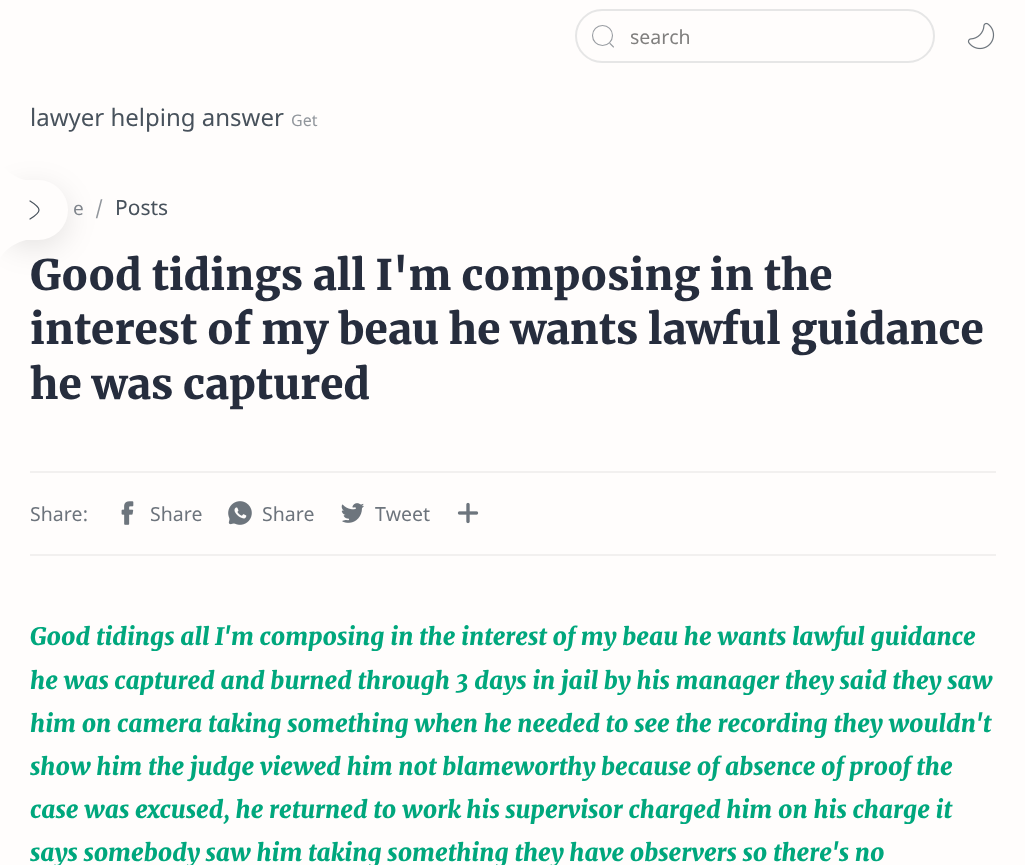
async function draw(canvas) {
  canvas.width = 1025;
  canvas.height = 865;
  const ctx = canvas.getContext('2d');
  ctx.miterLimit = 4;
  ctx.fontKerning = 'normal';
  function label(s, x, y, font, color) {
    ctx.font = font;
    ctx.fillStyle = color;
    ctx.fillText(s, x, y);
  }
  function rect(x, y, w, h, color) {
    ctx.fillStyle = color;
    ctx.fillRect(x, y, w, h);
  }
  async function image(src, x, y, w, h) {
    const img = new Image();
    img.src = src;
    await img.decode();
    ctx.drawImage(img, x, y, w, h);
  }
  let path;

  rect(0, 0, 1025, 865, '#fffdfc');
  ctx.beginPath();
  ctx.roundRect(576, 10, 358, 52, 26);
  ctx.strokeStyle = '#e6e6e6';
  ctx.lineWidth = 2;
  ctx.stroke();
  ctx.beginPath();
  ctx.arc(602.5, 35.5, 10, 0, 2 * Math.PI);
  ctx.strokeStyle = '#999da2';
  ctx.lineWidth = 1.1;
  ctx.stroke();
  path = new Path2D('M610 43.5L613.5 47');
  ctx.lineCap = 'round';
  ctx.lineJoin = 'round';
  ctx.stroke(path);
  label('search', 630, 44, '19.5px Noto Sans', '#807f7e');
  await image('assets/img1.png', 967, 22, 28, 28);
  label('lawyer helping answer', 30, 126, '24px Noto Sans', '#48525c');
  ctx.save();
  ctx.beginPath();
  ctx.rect(291, 108, 27, 23);
  ctx.clip();
  label('Get', 291, 126, '16px Noto Sans', '#91969c');
  ctx.restore();
  ctx.fillStyle = '#0000001a';
  ctx.filter = 'blur(15px)';
  ctx.beginPath();
  ctx.roundRect(0, 188, 68, 60, 30);
  ctx.fill();
  ctx.filter = 'none';
  ctx.fillStyle = '#fffdfc';
  ctx.beginPath();
  ctx.roundRect(0, 180, 68, 60, [0, 30, 30, 0]);
  ctx.fill();
  path = new Path2D('M30 201C30 201 39 206.5 39 210C39 213.5 30 219 30 219');
  ctx.strokeStyle = '#48525c';
  ctx.lineWidth = 1.2;
  ctx.stroke(path);
  path = new Path2D('M28 180.5H0L-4 152.5C2 168 11.5 177.5 28 180.5Z');
  ctx.fill(path);
  path = new Path2D('M-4 267.5L0 239.5H28C12 243.5 1 251.5-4 267.5Z');
  ctx.fill(path);
  label('e', 73, 215, '19px Noto Sans', '#7f858c');
  label('/', 95, 215, '19px Noto Sans', '#91969c');
  label('Posts', 115, 215, '21px Noto Sans', '#48525c');
  label('Good tidings all I\'m composing in the', 30, 290, '900 42px Merriweather', '#262d3d');
  label('interest of my beau he wants lawful guidance', 30, 344, '900 42px Merriweather', '#262d3d');
  label('he was captured', 30, 399, '900 42px Merriweather', '#262d3d');
  rect(30, 471, 966, 2, '#f2f0ef');
  rect(30, 554, 966, 2, '#f2f0ef');
  label('Share:', 30, 521, '19.5px Noto Sans', '#6d747c');
  await image('assets/img2.png', 121, 501, 13, 24);
  label('Share', 150, 521, '19.5px Noto Sans', '#6d747c');
  await image('assets/img3.png', 228, 501, 24, 24);
  label('Share', 262, 521, '19.5px Noto Sans', '#6d747c');
  await image('assets/img4.png', 341, 503, 23, 20);
  label('Tweet', 375, 521, '19.5px Noto Sans', '#6d747c');
  await image('assets/img5.png', 457, 502, 22, 22);
  label('Good tidings all I\'m composing in the interest of my beau he wants lawful guidance', 30, 645, 'italic 900 24px Merriweather', '#00a77d');
  label('he was captured and burned through 3 days in jail by his manager they said they saw', 30, 689, 'italic 900 24px Merriweather', '#00a77d');
  label('him on camera taking something when he needed to see the recording they wouldn\'t', 30, 732, 'italic 900 24px Merriweather', '#00a77d');
  label('show him the judge viewed him not blameworthy because of absence of proof the', 30, 775, 'italic 900 24px Merriweather', '#00a77d');
  label('case was excused, he returned to work his supervisor charged him on his charge it', 30, 818, 'italic 900 24px Merriweather', '#00a77d');
  label('says somebody saw him taking something they have observers so there\'s no', 30, 861, 'italic 900 24px Merriweather', '#00a77d');
}

draw(document.querySelector('canvas'));
